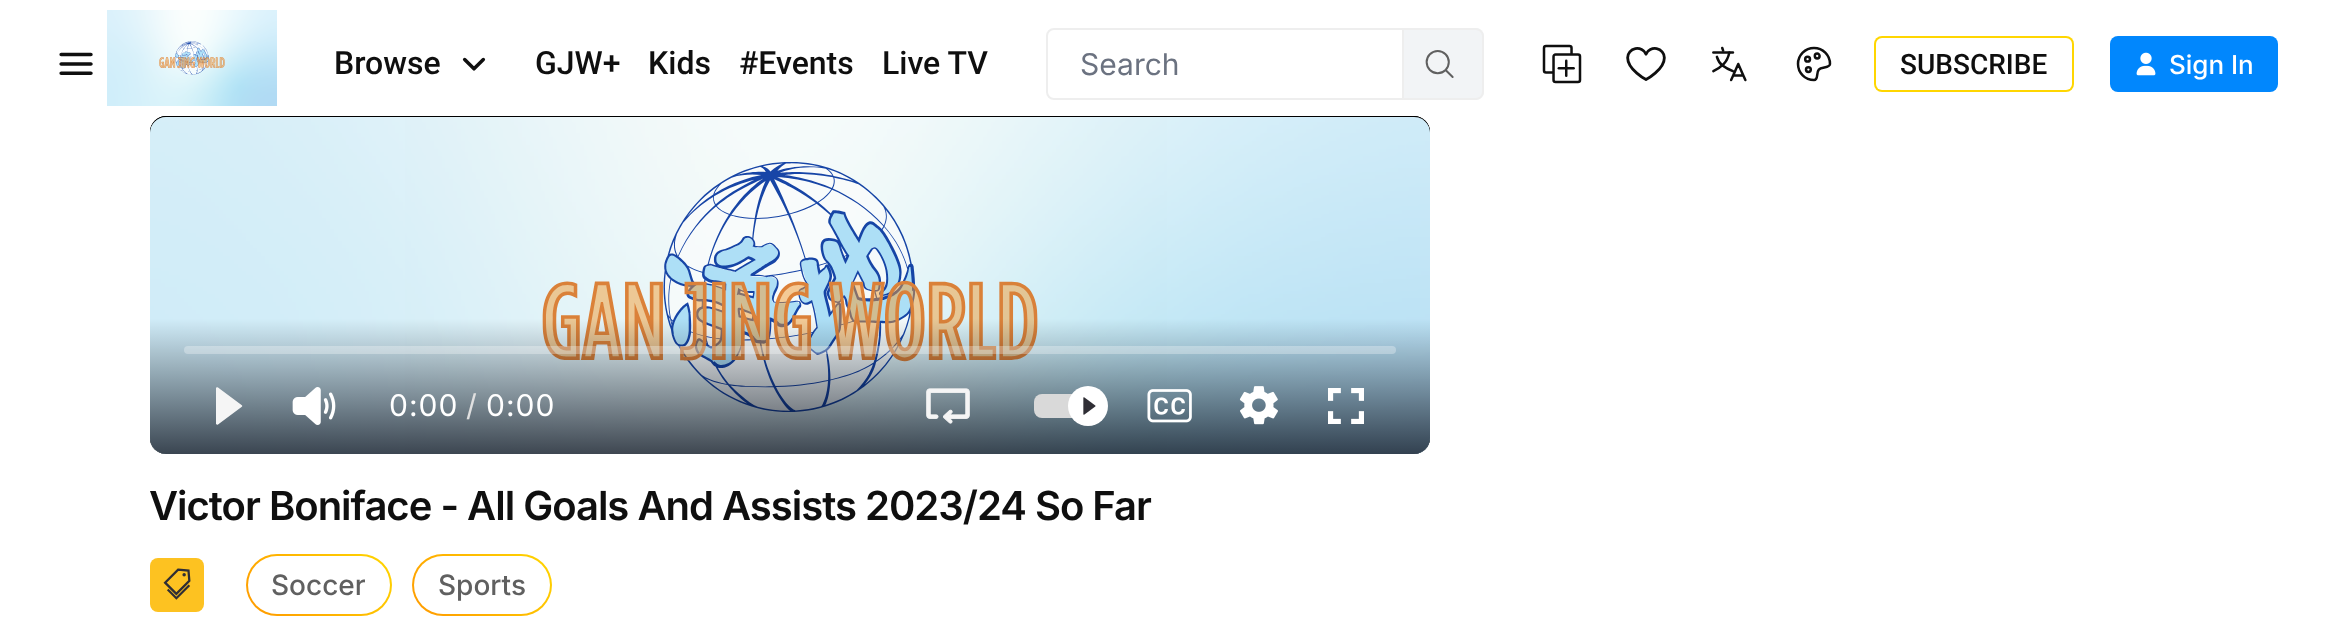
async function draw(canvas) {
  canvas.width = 2326;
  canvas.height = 637;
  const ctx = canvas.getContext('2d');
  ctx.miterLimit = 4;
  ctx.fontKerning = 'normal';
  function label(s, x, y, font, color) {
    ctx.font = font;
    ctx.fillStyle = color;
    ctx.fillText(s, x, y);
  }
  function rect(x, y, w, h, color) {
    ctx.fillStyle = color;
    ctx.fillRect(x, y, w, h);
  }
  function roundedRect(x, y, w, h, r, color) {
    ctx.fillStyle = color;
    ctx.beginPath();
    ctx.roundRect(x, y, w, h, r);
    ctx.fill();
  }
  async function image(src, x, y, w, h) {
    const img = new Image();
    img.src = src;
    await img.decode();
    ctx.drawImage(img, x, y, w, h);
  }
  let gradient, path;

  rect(0, 0, 2326, 637, '#fff');
  await image('assets/img1.png', 59, 52, 34, 23);
  await image('assets/img2.png', 107, 10, 170, 96);
  label('Browse', 334, 74, '500 32px Roboto', '#0f0f0f');
  await image('assets/img3.png', 462, 57, 24, 14);
  label('GJW+', 535, 74, '500 32px Roboto', '#0f0f0f');
  label('Kids', 648, 74, '500 32px Roboto', '#0f0f0f');
  label('#Events', 739, 74, '500 32px Roboto', '#0f0f0f');
  label('Live TV', 882, 74, '500 32px Roboto', '#0f0f0f');
  ctx.beginPath();
  ctx.roundRect(1047, 29, 356, 70, [7, 0, 0, 7]);
  ctx.strokeStyle = '#eee';
  ctx.lineWidth = 2;
  ctx.stroke();
  label('Search', 1080, 75, '30px Inter', '#6b7280');
  ctx.fillStyle = '#f2f4f6';
  ctx.beginPath();
  ctx.roundRect(1404, 28, 80, 72, [0, 8, 8, 0]);
  ctx.fill();
  ctx.fillStyle = '#eee';
  path = new Path2D('M1404 28H1476C1480 28 1484 32 1484 36V92C1484 96 1480 100 1476 100H1404ZM1404 30H1476C1479 30 1482 33 1482 36V92C1482 95 1479 98 1476 98H1404Z');
  ctx.fill(path, 'evenodd');
  await image('assets/img4.png', 1425, 50, 29, 28);
  await image('assets/img5.png', 1542, 44, 40, 40);
  await image('assets/img6.png', 1626, 47, 40, 34);
  await image('assets/img7.png', 1712, 46, 35, 36);
  await image('assets/img8.png', 1796, 46, 36, 36);
  gradient = ctx.createLinearGradient(1910, 128, 2038, -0.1);
  gradient.addColorStop(0.01, '#f90');
  gradient.addColorStop(0.01, '#ffd600');
  gradient.addColorStop(1, '#ffd601');
  ctx.fillStyle = gradient;
  ctx.beginPath();
  ctx.roundRect(1874, 36, 200, 56, 8);
  ctx.fill();
  roundedRect(1876, 38, 196, 52, 6, '#fff');
  label('SUBSCRIBE', 1900, 74, '500 28px Roboto', '#0f0f0f');
  roundedRect(2110, 36, 168, 56, 8, '#0187fd');
  await image('assets/img9.png', 2136, 52, 20, 24);
  label('Sign In', 2169, 74, '500 26px Inter', '#fff');
  roundedRect(150, 116, 1280, 338, 16, '#000');
  roundedRect(150, 116, 1280, 338, 16, '#000000fc');
  await image('assets/img10.png', 150, 117, 1280, 337);
  gradient = ctx.createLinearGradient(790, 454, 790, 116);
  gradient.addColorStop(0, '#010511b8');
  gradient.addColorStop(0.4, '#01051100');
  ctx.fillStyle = gradient;
  ctx.beginPath();
  ctx.roundRect(150, 116, 1280, 338, [0, 0, 16, 16]);
  ctx.fill();
  roundedRect(184, 346, 1212, 8, 4, '#ffffff4d');
  ctx.fillStyle = '#f5f5f5';
  path = new Path2D('M216 388.5C216 387.5 217 387 218 387.5L241.5 405C242.5 405.5 242.5 406.5 241.5 407L218 424.5C217 425 216 424.5 216 423.5Z');
  ctx.fill(path);
  await image('assets/img11.png', 292, 387, 44, 38);
  ctx.letterSpacing = '1px';
  label('0:00', 389, 416, '30px Inter', '#fff');
  ctx.letterSpacing = '0px';
  label('/', 466, 416, '30px Inter', '#e0e0e0');
  ctx.letterSpacing = '1px';
  label('0:00', 486, 416, '30px Inter', '#fff');
  await image('assets/img12.png', 926, 388, 44, 36);
  roundedRect(1034, 394, 54, 24, 8, '#d9d9d9');
  ctx.fillStyle = '#fff';
  ctx.beginPath();
  ctx.arc(1088, 406, 20, 0, 2 * Math.PI);
  ctx.fill();
  await image('assets/img13.png', 1083, 397, 13, 18);
  await image('assets/img14.png', 1147, 389, 45, 34);
  await image('assets/img15.png', 1239, 386, 39, 39);
  await image('assets/img16.png', 1328, 388, 36, 36);
  ctx.letterSpacing = '-1px';
  label('Victor Boniface - All Goals And Assists 2023/24 So Far', 149, 520, '600 40px Inter', '#0f0f0f');
  roundedRect(150, 558, 54, 54, 8, '#fdc221');
  await image('assets/img17.png', 163, 568, 28, 32);
  gradient = ctx.createLinearGradient(373, 534, 265, 636);
  gradient.addColorStop(0, '#ffd600');
  gradient.addColorStop(1, '#f90');
  ctx.fillStyle = gradient;
  ctx.beginPath();
  ctx.roundRect(246, 554, 146, 62, 31);
  ctx.fill();
  roundedRect(248, 556, 142, 58, 29, '#fff');
  ctx.letterSpacing = '0px';
  label('Soccer', 271, 595, '500 28px Inter', '#606060');
  gradient = ctx.createLinearGradient(534, 535, 430, 635);
  gradient.addColorStop(0, '#ffd600');
  gradient.addColorStop(1, '#f90');
  ctx.fillStyle = gradient;
  ctx.beginPath();
  ctx.roundRect(412, 554, 140, 62, 31);
  ctx.fill();
  roundedRect(414, 556, 136, 58, 29, '#fff');
  label('Sports', 438, 595, '500 28px Inter', '#606060');
}

draw(document.querySelector('canvas'));
